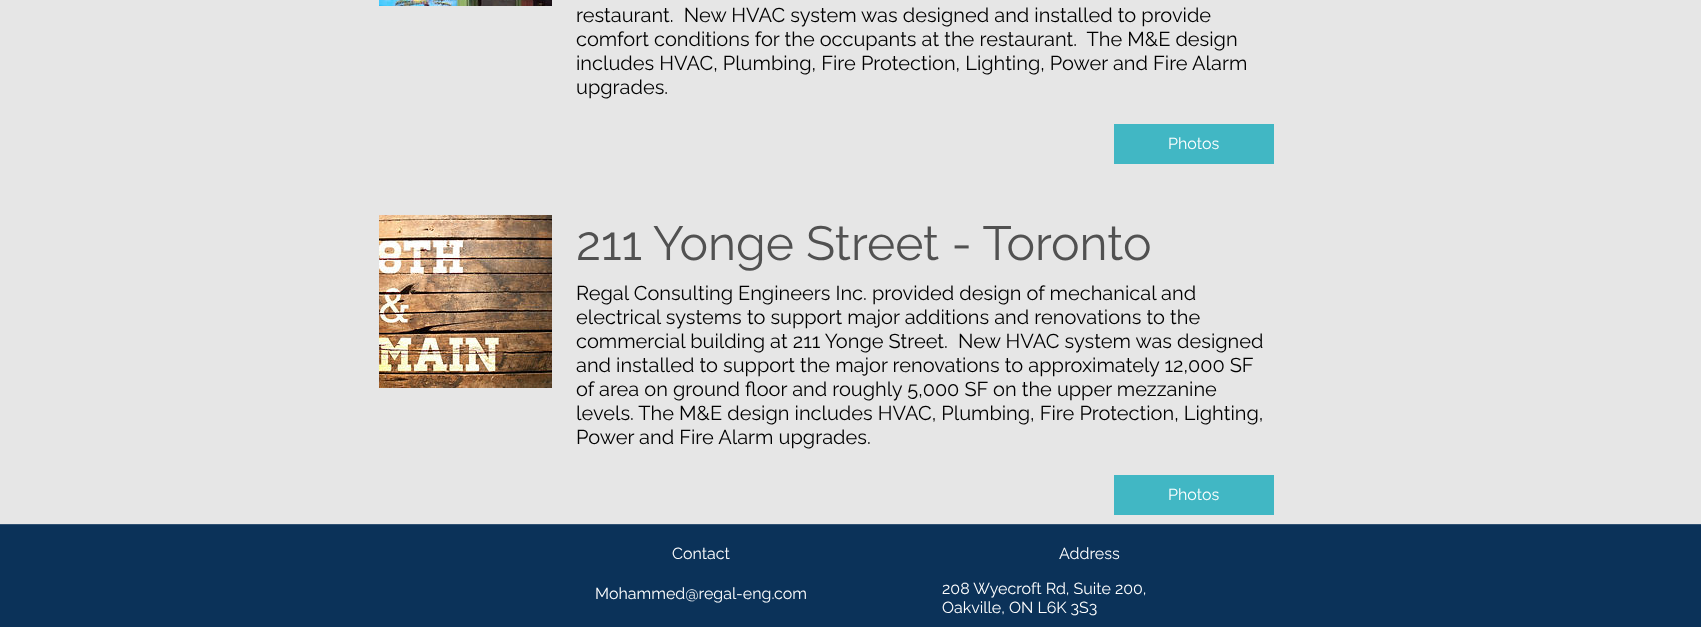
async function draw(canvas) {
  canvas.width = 1701;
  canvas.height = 627;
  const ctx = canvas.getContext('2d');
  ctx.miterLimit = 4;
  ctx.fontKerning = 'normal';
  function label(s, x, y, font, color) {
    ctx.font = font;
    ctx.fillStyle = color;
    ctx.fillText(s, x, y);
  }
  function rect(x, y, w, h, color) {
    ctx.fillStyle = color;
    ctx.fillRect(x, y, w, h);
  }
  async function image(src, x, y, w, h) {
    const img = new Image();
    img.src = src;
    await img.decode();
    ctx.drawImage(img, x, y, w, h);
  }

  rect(0, 0, 1701, 627, '#e6e6e6');
  await image('assets/img1.png', 379, 0, 173, 6);
  label('restaurant.  New HVAC system was designed and installed to provide', 576, 22, '20px Raleway', '#000');
  label('comfort conditions for the occupants at the restaurant.  The M&E design', 576, 46, '20px Raleway', '#000');
  label('includes HVAC, Plumbing, Fire Protection, Lighting, Power and Fire Alarm', 576, 70, '20px Raleway', '#000');
  label('upgrades.', 576, 94, '20px Raleway', '#000');
  rect(1114, 124, 160, 40, '#41b7c4');
  label('Photos', 1168, 149, '16px Raleway', '#fff');
  await image('assets/img2.png', 379, 215, 173, 173);
  label('211 Yonge Street - Toronto', 576, 260, '48px Raleway', '#515151');
  label('Regal Consulting Engineers Inc. provided design of mechanical and', 576, 300, '20px Raleway', '#000');
  label('electrical systems to support major additions and renovations to the', 576, 324, '20px Raleway', '#000');
  label('commercial building at 211 Yonge Street.  New HVAC system was designed', 576, 348, '20px Raleway', '#000');
  label('and installed to support the major renovations to approximately 12,000 SF', 576, 372, '20px Raleway', '#000');
  label('of area on ground floor and roughly 5,000 SF on the upper mezzanine', 576, 396, '20px Raleway', '#000');
  label('levels. The M&E design includes HVAC, Plumbing, Fire Protection, Lighting,', 576, 420, '20px Raleway', '#000');
  label('Power and Fire Alarm upgrades.', 576, 444, '20px Raleway', '#000');
  rect(1114, 475, 160, 40, '#41b7c4');
  label('Photos', 1168, 500, '16px Raleway', '#fff');
  rect(0, 525, 1701, 102, '#0b3259');
  rect(0, 524, 1701, 1, '#305172');
  label('Contact', 672, 559, '16px Raleway', '#fff');
  label('Address', 1059, 559, '16px Raleway', '#fff');
  label('Mohammed@regal-eng.com', 595, 599, '16px Raleway', '#fff');
  label('208 Wyecroft Rd, Suite 200,', 942, 594, '16px Raleway', '#fff');
  label('Oakville, ON L6K 3S3', 942, 613, '16px Raleway', '#fff');
}

draw(document.querySelector('canvas'));
